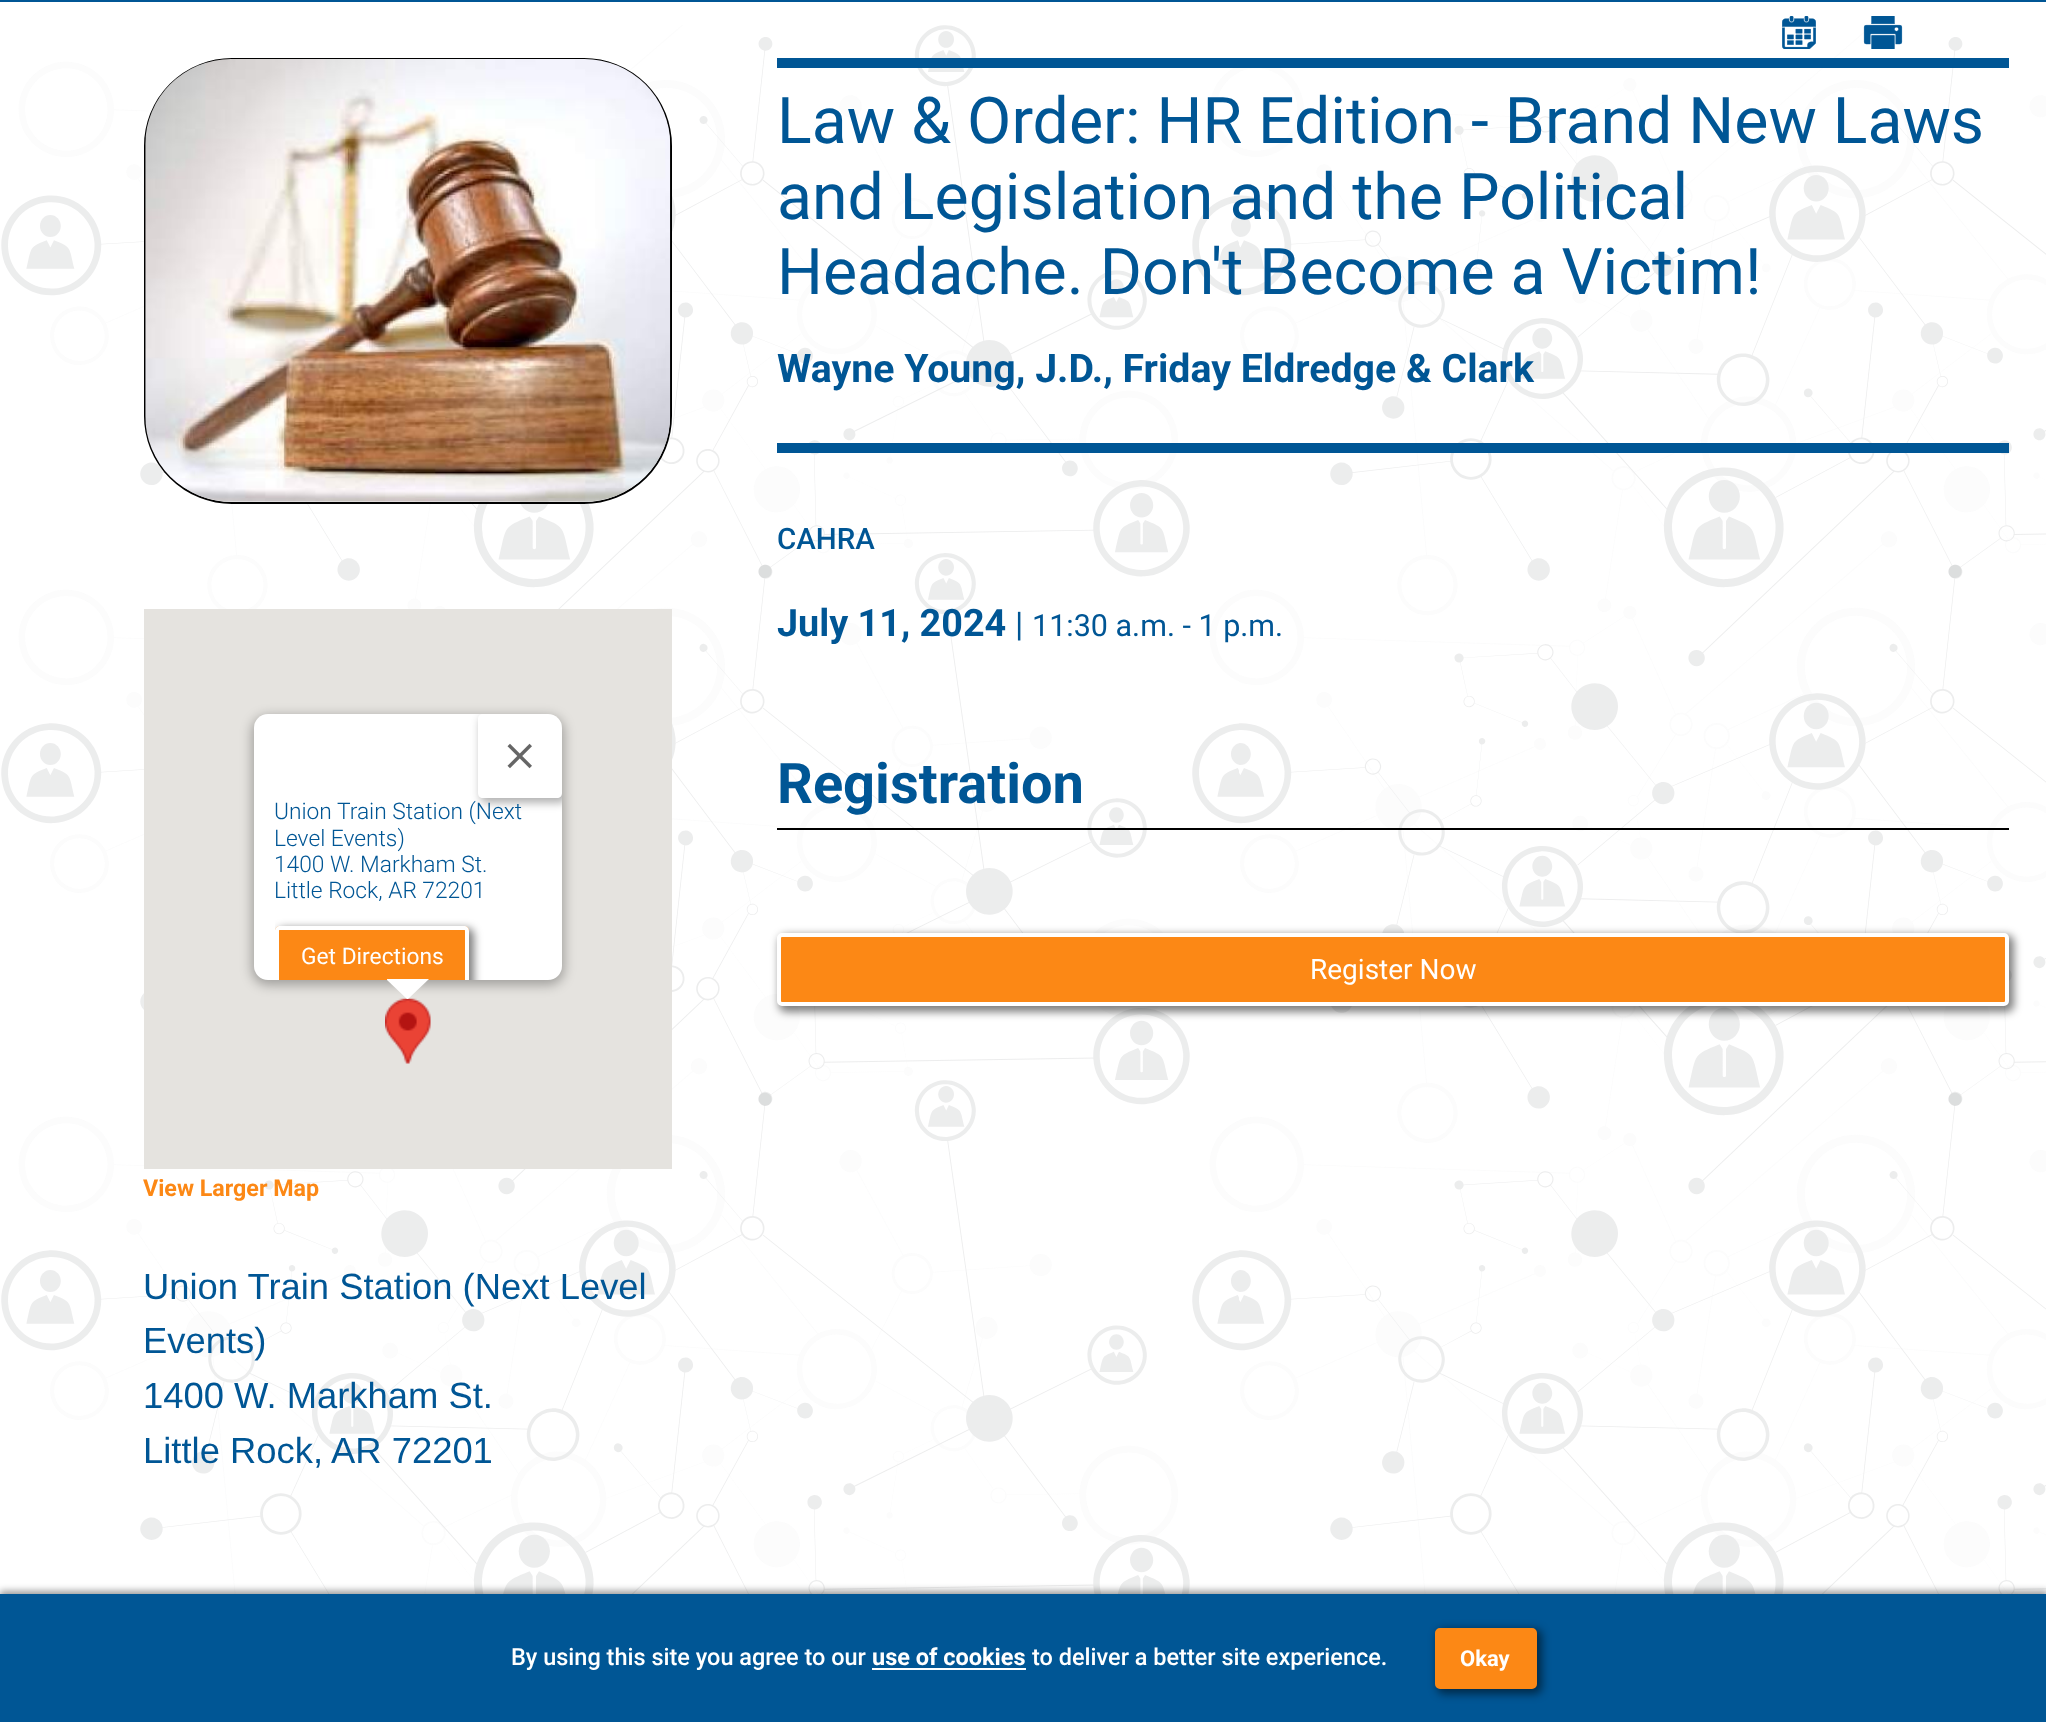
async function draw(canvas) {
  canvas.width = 2046;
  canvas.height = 1722;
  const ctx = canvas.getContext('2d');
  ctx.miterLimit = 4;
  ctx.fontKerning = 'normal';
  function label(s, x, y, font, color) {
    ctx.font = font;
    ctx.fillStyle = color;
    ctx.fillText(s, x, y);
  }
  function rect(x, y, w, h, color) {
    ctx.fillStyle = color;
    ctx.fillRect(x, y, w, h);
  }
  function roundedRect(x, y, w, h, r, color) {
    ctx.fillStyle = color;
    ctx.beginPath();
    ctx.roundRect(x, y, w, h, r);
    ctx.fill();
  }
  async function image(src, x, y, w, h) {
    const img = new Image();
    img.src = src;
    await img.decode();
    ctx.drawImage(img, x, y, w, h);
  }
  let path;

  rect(0, 0, 2046, 1722, '#fff');
  await image('assets/img1.png', 1, 25, 2045, 1569);
  rect(0, 0, 2046, 2, '#005695');
  await image('assets/img2.png', 1782, 16, 34, 33);
  await image('assets/img3.png', 1863, 16, 40, 33);
  ctx.beginPath();
  ctx.roundRect(145, 59, 526, 444, 87);
  ctx.strokeStyle = '#000';
  ctx.lineWidth = 2;
  ctx.stroke();
  await image('assets/img4.png', 145, 59, 526, 443);
  rect(777, 58, 1232, 10, '#005695');
  rect(777, 443, 1232, 10, '#005695');
  label('Law & Order: HR Edition - Brand New Laws', 777, 143, '64.4px Roboto', '#005695');
  label('and Legislation and the Political', 777, 219, '64.4px Roboto', '#005695');
  label('Headache. Don\'t Become a Victim!', 777, 294, '64.4px Roboto', '#005695');
  label('Wayne Young, J.D., Friday Eldredge & Clark', 777, 382, 'bold 39.25px Roboto', '#005695');
  label('CAHRA', 777, 549, '500 29.5px Roboto', '#005695');
  label('July 11, 2024', 777, 636, 'bold 37.75px Roboto', '#005695');
  label('|', 1015, 636, '34px Roboto', '#005695');
  label('11:30 a.m. - 1 p.m.', 1032, 636, '30.5px Roboto', '#005695');
  rect(144, 609, 528, 560, '#e5e3df');
  await image('assets/img6.png', 385, 998, 46, 66);
  ctx.fillStyle = '#0000004d';
  ctx.filter = 'blur(6px)';
  ctx.beginPath();
  ctx.roundRect(252, 716, 312, 269, 16);
  ctx.fill();
  ctx.filter = 'none';
  roundedRect(254, 714, 308, 266, 14, '#fff');
  ctx.save();
  ctx.beginPath();
  ctx.roundRect(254, 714, 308, 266, 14);
  ctx.clip();
  path = new Path2D('M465 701H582V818H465ZM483 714H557C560 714 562 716 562 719V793C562 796 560 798 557 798H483C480 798 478 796 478 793V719C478 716 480 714 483 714Z');
  ctx.clip(path, 'evenodd');
  ctx.fillStyle = '#0000004d';
  ctx.filter = 'blur(4.5px)';
  ctx.beginPath();
  ctx.roundRect(480, 716, 87, 87, 7);
  ctx.fill();
  ctx.filter = 'none';
  ctx.restore();
  await image('assets/img5.png', 507, 743, 25, 26);
  label('Union Train Station (Next', 274, 819, '300 22.75px Roboto', '#005695');
  label('Level Events)', 274, 846, '300 22.75px Roboto', '#005695');
  label('1400 W. Markham St.', 274, 872, '300 22.75px Roboto', '#005695');
  label('Little Rock, AR 72201', 274, 898, '300 22.75px Roboto', '#005695');
  ctx.save();
  ctx.beginPath();
  ctx.rect(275, 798, 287, 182);
  ctx.clip();
  ctx.fillStyle = '#00000080';
  ctx.filter = 'blur(4.5px)';
  ctx.beginPath();
  ctx.roundRect(277, 928, 197, 64, 7);
  ctx.fill();
  ctx.filter = 'none';
  ctx.restore();
  ctx.fillStyle = '#fc8815';
  ctx.beginPath();
  ctx.roundRect(275, 926, 194, 54, [5, 5, 0, 0]);
  ctx.fill();
  ctx.fillStyle = '#fff';
  path = new Path2D('M280 926C277 926 275 928 275 931V980H279V931C279 930 279 930 280 930H464C465 930 465 930 465 931V980H469V931C469 928 467 926 464 926Z');
  ctx.fill(path);
  label('Get Directions', 301, 964, '22.75px Roboto', '#fff');
  path = new Path2D('M387 980V979H429L408 999H407Z');
  ctx.fill(path);
  label('View Larger Map', 143, 1196, 'bold 23.25px Roboto', '#fc8815');
  rect(777, 828, 1232, 2, '#000');
  label('Registration', 777, 803, 'bold 56px Roboto', '#005695');
  ctx.fillStyle = '#00000080';
  ctx.filter = 'blur(4.5px)';
  ctx.beginPath();
  ctx.roundRect(779, 935, 1235, 77, 7);
  ctx.fill();
  ctx.filter = 'none';
  ctx.fillStyle = '#fc8815';
  ctx.beginPath();
  ctx.roundRect(779, 935, 1228, 69, 3);
  ctx.fill();
  ctx.strokeStyle = '#fff';
  ctx.lineWidth = 4;
  ctx.stroke();
  label('Register Now', 1310, 979, '28px Roboto', '#fff');
  label('Union Train Station (Next Level', 143, 1299, '36.4px Liberation Sans', '#005695');
  label('Events)', 143, 1353, '36.4px Liberation Sans', '#005695');
  label('1400 W. Markham St.', 143, 1408, '36.4px Liberation Sans', '#005695');
  label('Little Rock,', 143, 1463, '36.4px Liberation Sans', '#005695');
  label('AR 72201', 331, 1463, '36.4px Liberation Sans', '#005695');
  ctx.fillStyle = '#00000066';
  ctx.filter = 'blur(3.5px)';
  ctx.beginPath();
  ctx.rect(0, 1591, 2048, 128);
  ctx.fill();
  ctx.filter = 'none';
  rect(0, 1594, 2046, 128, '#005695');
  label('By using this site you agree to our', 511, 1665, '500 23.5px Roboto', '#fff');
  label('use of cookies', 872, 1665, 'bold 23.5px Roboto', '#fff');
  rect(872, 1668, 154, 2, '#fff');
  label('to deliver a better site experience.', 1032, 1665, '500 23.5px Roboto', '#fff');
  ctx.fillStyle = '#00000080';
  ctx.filter = 'blur(4.5px)';
  ctx.beginPath();
  ctx.roundRect(1437, 1629, 105, 65, 7);
  ctx.fill();
  ctx.filter = 'none';
  ctx.fillStyle = '#fc8815';
  ctx.beginPath();
  ctx.roundRect(1437, 1630, 98, 57, 3);
  ctx.fill();
  ctx.strokeStyle = '#fc8815';
  ctx.stroke();
  label('Okay', 1460, 1666, 'bold 22px Roboto', '#fff');
}

draw(document.querySelector('canvas'));
